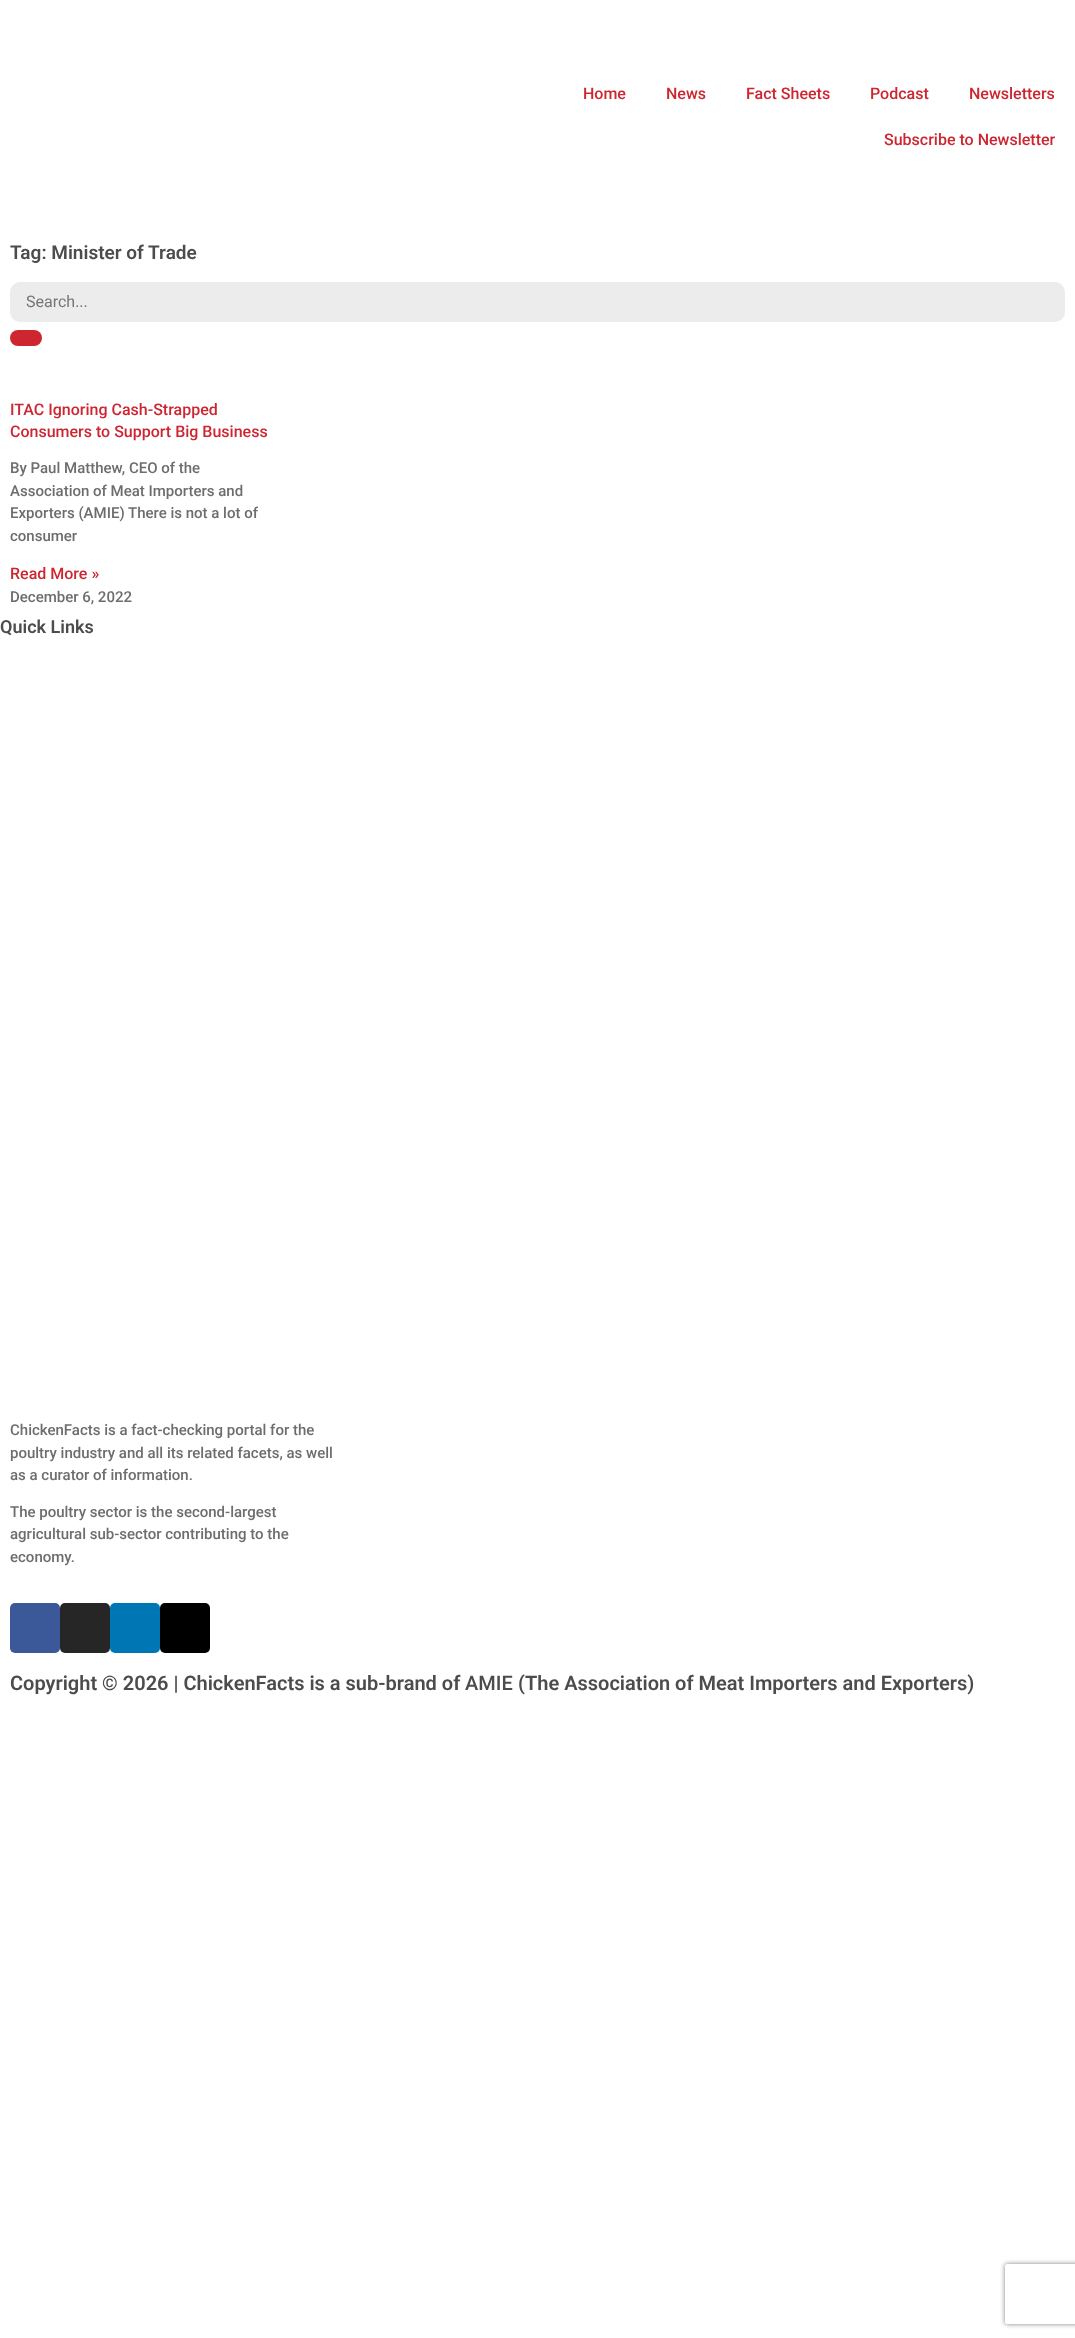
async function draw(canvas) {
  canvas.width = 1075;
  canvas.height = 2338;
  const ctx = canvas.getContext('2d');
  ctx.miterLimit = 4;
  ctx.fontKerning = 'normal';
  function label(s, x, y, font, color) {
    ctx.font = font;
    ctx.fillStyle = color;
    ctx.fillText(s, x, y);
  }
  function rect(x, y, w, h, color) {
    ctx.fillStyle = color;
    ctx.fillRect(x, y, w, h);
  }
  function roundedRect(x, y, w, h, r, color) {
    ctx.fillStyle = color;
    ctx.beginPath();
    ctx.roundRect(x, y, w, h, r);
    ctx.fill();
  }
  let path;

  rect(0, 0, 1075, 2338, '#fff');
  label('Home', 583, 99, '500 16px Roboto', '#cd2631');
  label('News', 666, 99, '500 16px Roboto', '#cd2631');
  label('Fact Sheets', 746, 99, '500 16px Roboto', '#cd2631');
  label('Podcast', 870, 99, '500 16px Roboto', '#cd2631');
  label('Newsletters', 969, 99, '500 16px Roboto', '#cd2631');
  label('Subscribe to Newsletter', 884, 145, '500 16px Roboto', '#cd2631');
  label('Tag: Minister of Trade', 10, 259, '600 19px Roboto', '#4c4c4c');
  roundedRect(10, 282, 1055, 40, 10, '#ececec');
  label('Search...', 26, 307, '16px Roboto', '#757575');
  roundedRect(10, 330, 32, 16, 8, '#cd2631');
  label('ITAC Ignoring Cash-Strapped', 10, 415, '500 16px Roboto', '#cd2631');
  label('Consumers to Support Big Business', 10, 437, '500 16px Roboto', '#cd2631');
  label('By Paul Matthew, CEO of the', 10, 473, '500 15px Roboto', '#6d6d6d');
  label('Association of Meat Importers and', 10, 496, '500 15px Roboto', '#6d6d6d');
  label('Exporters (AMIE) There is not a lot of', 10, 518, '500 15px Roboto', '#6d6d6d');
  label('consumer', 10, 541, '500 15px Roboto', '#6d6d6d');
  label('Read More »', 10, 579, '500 16px Roboto', '#cd2631');
  label('December 6, 2022', 10, 602, '500 15px Roboto', '#6d6d6d');
  label('Quick Links', 0, 633, '600 18px Roboto', '#4c4c4c');
  label('ChickenFacts is a fact-checking portal for the', 10, 1435, '500 15px Roboto', '#6d6d6d');
  label('poultry industry and all its related facets, as well', 10, 1458, '500 15px Roboto', '#6d6d6d');
  label('as a curator of information.', 10, 1480, '500 15px Roboto', '#6d6d6d');
  label('The poultry sector is the second-largest', 10, 1517, '500 15px Roboto', '#6d6d6d');
  label('agricultural sub-sector contributing to the', 10, 1539, '500 15px Roboto', '#6d6d6d');
  label('economy.', 10, 1562, '500 15px Roboto', '#6d6d6d');
  roundedRect(10, 1603, 50, 50, 5, '#3b5998');
  roundedRect(60, 1603, 50, 50, 5, '#262626');
  roundedRect(110, 1603, 50, 50, 5, '#0077b5');
  roundedRect(160, 1603, 50, 50, 5, '#000');
  label('Copyright © 2026 | ChickenFacts is a sub-brand of', 10, 1690, '600 20px Roboto', '#4c4c4c');
  label('AMIE', 465, 1690, '500 20px Roboto', '#4c4c4c');
  label('(The Association of Meat Importers and Exporters)', 518, 1690, '600 20px Roboto', '#4c4c4c');
  ctx.save();
  path = new Path2D('M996 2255H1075V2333H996ZM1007 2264H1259C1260 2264 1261 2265 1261 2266V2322C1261 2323 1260 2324 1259 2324H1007C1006 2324 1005 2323 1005 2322V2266C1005 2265 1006 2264 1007 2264Z');
  ctx.clip(path, 'evenodd');
  ctx.fillStyle = '#808080';
  ctx.filter = 'blur(2.5px)';
  ctx.beginPath();
  ctx.roundRect(1005, 2264, 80, 60, 2);
  ctx.fill();
  ctx.filter = 'none';
  ctx.restore();
}

draw(document.querySelector('canvas'));
